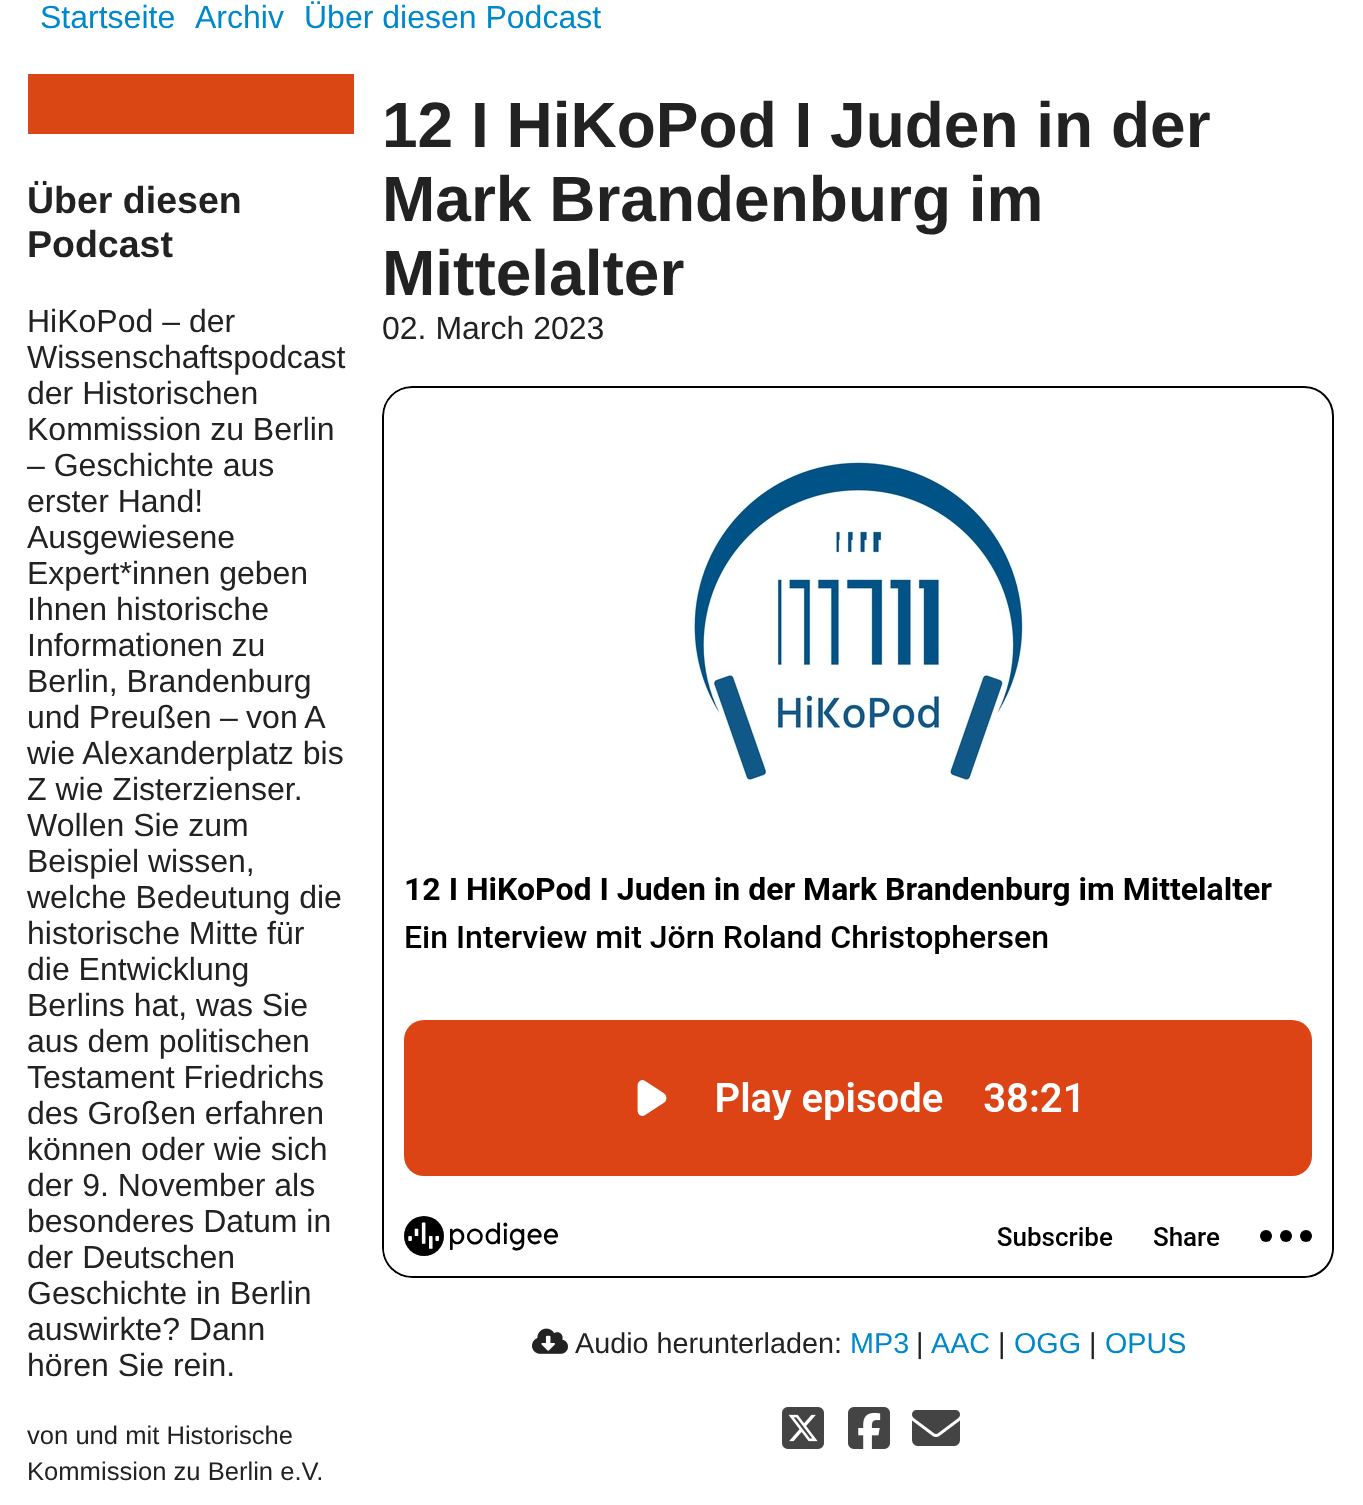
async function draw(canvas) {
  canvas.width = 1363;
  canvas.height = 1505;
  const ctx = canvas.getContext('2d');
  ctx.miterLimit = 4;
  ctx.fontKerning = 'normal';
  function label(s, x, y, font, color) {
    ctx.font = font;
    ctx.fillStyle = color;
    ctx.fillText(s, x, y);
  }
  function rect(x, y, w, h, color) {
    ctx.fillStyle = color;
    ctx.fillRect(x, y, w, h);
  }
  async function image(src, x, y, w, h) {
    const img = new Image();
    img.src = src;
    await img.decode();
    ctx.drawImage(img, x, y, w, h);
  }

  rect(0, 0, 1363, 1505, '#fff');
  label('Startseite', 40, 28, '32px Liberation Sans', '#08c');
  label('Archiv', 195, 28, '32px Liberation Sans', '#08c');
  label('Über diesen Podcast', 304, 28, '32px Liberation Sans', '#08c');
  rect(28, 74, 326, 60, '#db4615');
  label('Über diesen', 27, 213, 'bold 37.5px Liberation Sans', '#222');
  label('Podcast', 27, 257, 'bold 37.5px Liberation Sans', '#222');
  label('HiKoPod – der', 27, 332, '32px Liberation Sans', '#222');
  label('Wissenschaftspodcast', 27, 368, '32px Liberation Sans', '#222');
  label('der Historischen', 27, 404, '32px Liberation Sans', '#222');
  label('Kommission zu Berlin', 27, 440, '32px Liberation Sans', '#222');
  label('– Geschichte aus', 27, 476, '32px Liberation Sans', '#222');
  label('erster Hand!', 27, 512, '32px Liberation Sans', '#222');
  label('Ausgewiesene', 27, 548, '32px Liberation Sans', '#222');
  label('Expert*innen geben', 27, 584, '32px Liberation Sans', '#222');
  label('Ihnen historische', 27, 620, '32px Liberation Sans', '#222');
  label('Informationen zu', 27, 656, '32px Liberation Sans', '#222');
  label('Berlin, Brandenburg', 27, 692, '32px Liberation Sans', '#222');
  ctx.wordSpacing = '-0.5px';
  label('und Preußen – von A', 27, 728, '32px Liberation Sans', '#222');
  ctx.wordSpacing = '0px';
  label('wie Alexanderplatz bis', 27, 764, '32px Liberation Sans', '#222');
  label('Z wie Zisterzienser.', 27, 800, '32px Liberation Sans', '#222');
  label('Wollen Sie zum', 27, 836, '32px Liberation Sans', '#222');
  label('Beispiel wissen,', 27, 872, '32px Liberation Sans', '#222');
  label('welche Bedeutung die', 27, 908, '32px Liberation Sans', '#222');
  label('historische Mitte für', 27, 944, '32px Liberation Sans', '#222');
  label('die Entwicklung', 27, 980, '32px Liberation Sans', '#222');
  label('Berlins hat, was Sie', 27, 1016, '32px Liberation Sans', '#222');
  label('aus dem politischen', 27, 1052, '32px Liberation Sans', '#222');
  label('Testament Friedrichs', 27, 1088, '32px Liberation Sans', '#222');
  label('des Großen erfahren', 27, 1124, '32px Liberation Sans', '#222');
  label('können oder wie sich', 27, 1160, '32px Liberation Sans', '#222');
  label('der 9. November als', 27, 1196, '32px Liberation Sans', '#222');
  label('besonderes Datum in', 27, 1232, '32px Liberation Sans', '#222');
  label('der Deutschen', 27, 1268, '32px Liberation Sans', '#222');
  label('Geschichte in Berlin', 27, 1304, '32px Liberation Sans', '#222');
  label('auswirkte? Dann', 27, 1340, '32px Liberation Sans', '#222');
  label('hören Sie rein.', 27, 1376, '32px Liberation Sans', '#222');
  label('von und mit Historische', 27, 1444, '25.6px Liberation Sans', '#222');
  label('Kommission zu Berlin e.V.', 27, 1480, '25.6px Liberation Sans', '#222');
  label('12 I HiKoPod I Juden in der', 382, 147, 'bold 64px Liberation Sans', '#222');
  label('Mark Brandenburg im', 382, 221, 'bold 64px Liberation Sans', '#222');
  label('Mittelalter', 382, 295, 'bold 64px Liberation Sans', '#222');
  label('02. March 2023', 382, 339, '32px Liberation Sans', '#222');
  await image('assets/img1.png', 382, 386, 952, 892);
  await image('assets/img2.png', 532, 1328, 36, 26);
  label('Audio herunterladen:', 575, 1353, '28.75px Liberation Sans', '#222');
  label('MP3', 850, 1353, '28.75px Liberation Sans', '#08c');
  label('|', 916, 1353, '28.75px Liberation Sans', '#222');
  label('AAC', 931, 1353, '28.75px Liberation Sans', '#08c');
  label('|', 998, 1353, '28.75px Liberation Sans', '#222');
  label('OGG', 1014, 1353, '28.75px Liberation Sans', '#08c');
  label('|', 1089, 1353, '28.75px Liberation Sans', '#222');
  label('OPUS', 1105, 1353, '28.75px Liberation Sans', '#08c');
  await image('assets/img3.png', 782, 1407, 42, 42);
  await image('assets/img4.png', 848, 1407, 42, 42);
  await image('assets/img5.png', 912, 1410, 48, 36);
}

draw(document.querySelector('canvas'));
